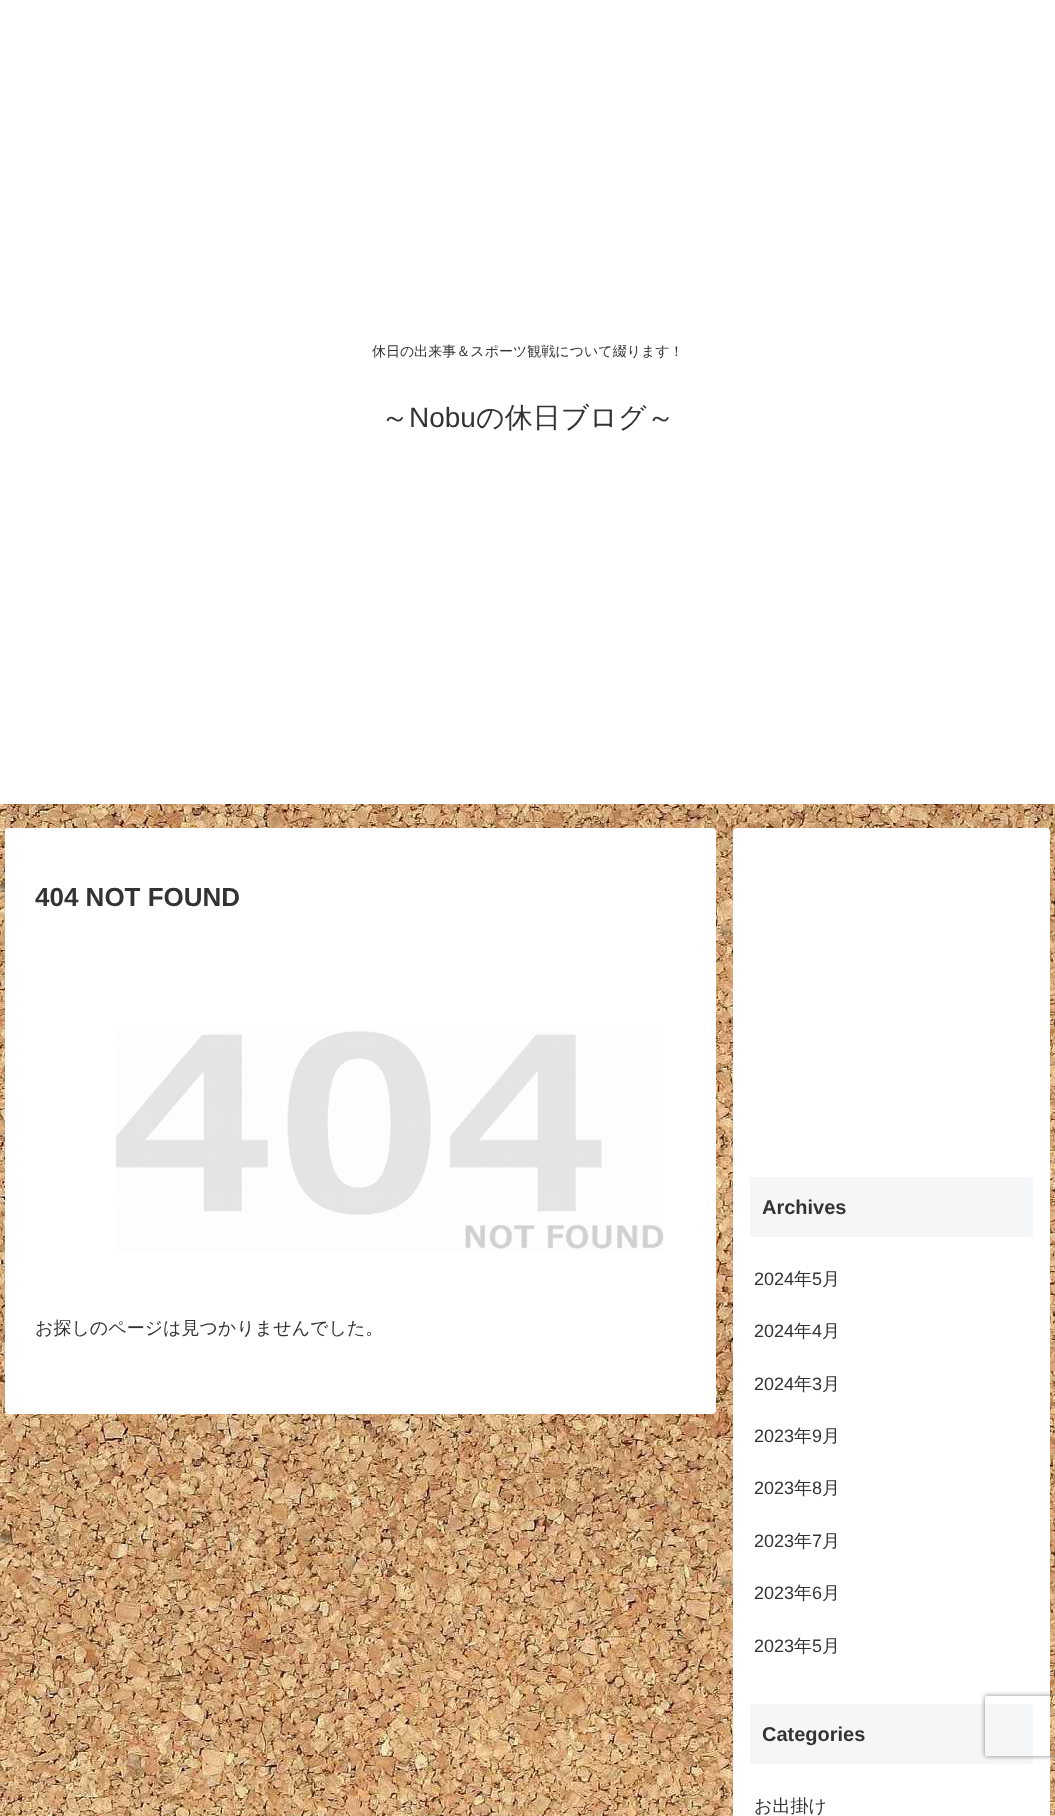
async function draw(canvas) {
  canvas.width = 1055;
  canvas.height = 1816;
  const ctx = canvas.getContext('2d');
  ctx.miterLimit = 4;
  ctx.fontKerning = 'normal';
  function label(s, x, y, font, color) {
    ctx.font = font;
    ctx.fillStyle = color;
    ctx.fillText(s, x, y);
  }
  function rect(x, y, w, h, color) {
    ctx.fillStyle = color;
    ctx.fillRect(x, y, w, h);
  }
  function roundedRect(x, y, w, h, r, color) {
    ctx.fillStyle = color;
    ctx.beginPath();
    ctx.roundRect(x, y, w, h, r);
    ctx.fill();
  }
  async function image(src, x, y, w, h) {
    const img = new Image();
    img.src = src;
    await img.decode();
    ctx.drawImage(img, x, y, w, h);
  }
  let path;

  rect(0, 0, 1055, 1816, '#fff');
  await image('assets/img1.png', 0, 804, 1055, 1012);
  label('休日の出来事＆スポーツ観戦について綴ります！', 372, 356, '500 14px WenQuanYi Zen Hei', '#333');
  label('～', 381, 427, '500 28px WenQuanYi Zen Hei', '#333');
  label('Nobu', 409, 427, '28px Liberation Sans', '#333');
  label('の休日ブログ～', 476, 427, '500 28px WenQuanYi Zen Hei', '#333');
  roundedRect(5, 828, 711, 586, 4, '#fff');
  label('404 NOT FOUND', 35, 906, 'bold 26px Liberation Sans', '#333');
  await image('assets/img2.png', 115, 1030, 549, 221);
  label('お探しのページは見つかりませんでした。', 35, 1334, '500 18px WenQuanYi Zen Hei', '#333');
  roundedRect(733, 828, 317, 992, 4, '#fff');
  roundedRect(750, 1177, 283, 60, 2, '#f5f6f7');
  label('Archives', 762, 1214, 'bold 20px Liberation Sans', '#333');
  label('2024', 754, 1285, '18px Liberation Sans', '#333');
  label('年', 794, 1285, '500 18px WenQuanYi Zen Hei', '#333');
  label('5', 812, 1285, '18px Liberation Sans', '#333');
  label('月', 822, 1285, '500 18px WenQuanYi Zen Hei', '#333');
  label('2024', 754, 1337, '18px Liberation Sans', '#333');
  label('年', 794, 1337, '500 18px WenQuanYi Zen Hei', '#333');
  label('4', 812, 1337, '18px Liberation Sans', '#333');
  label('月', 822, 1337, '500 18px WenQuanYi Zen Hei', '#333');
  label('2024', 754, 1390, '18px Liberation Sans', '#333');
  label('年', 794, 1390, '500 18px WenQuanYi Zen Hei', '#333');
  label('3', 812, 1390, '18px Liberation Sans', '#333');
  label('月', 822, 1390, '500 18px WenQuanYi Zen Hei', '#333');
  label('2023', 754, 1442, '18px Liberation Sans', '#333');
  label('年', 794, 1442, '500 18px WenQuanYi Zen Hei', '#333');
  label('9', 812, 1442, '18px Liberation Sans', '#333');
  label('月', 822, 1442, '500 18px WenQuanYi Zen Hei', '#333');
  label('2023', 754, 1494, '18px Liberation Sans', '#333');
  label('年', 794, 1494, '500 18px WenQuanYi Zen Hei', '#333');
  label('8', 812, 1494, '18px Liberation Sans', '#333');
  label('月', 822, 1494, '500 18px WenQuanYi Zen Hei', '#333');
  label('2023', 754, 1547, '18px Liberation Sans', '#333');
  label('年', 794, 1547, '500 18px WenQuanYi Zen Hei', '#333');
  label('7', 812, 1547, '18px Liberation Sans', '#333');
  label('月', 822, 1547, '500 18px WenQuanYi Zen Hei', '#333');
  label('2023', 754, 1599, '18px Liberation Sans', '#333');
  label('年', 794, 1599, '500 18px WenQuanYi Zen Hei', '#333');
  label('6', 812, 1599, '18px Liberation Sans', '#333');
  label('月', 822, 1599, '500 18px WenQuanYi Zen Hei', '#333');
  label('2023', 754, 1652, '18px Liberation Sans', '#333');
  label('年', 794, 1652, '500 18px WenQuanYi Zen Hei', '#333');
  label('5', 812, 1652, '18px Liberation Sans', '#333');
  label('月', 822, 1652, '500 18px WenQuanYi Zen Hei', '#333');
  roundedRect(750, 1704, 283, 60, 2, '#f5f6f7');
  label('Categories', 762, 1741, 'bold 20px Liberation Sans', '#333');
  label('お出掛け', 754, 1812, '500 18px WenQuanYi Zen Hei', '#333');
  ctx.save();
  path = new Path2D('M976 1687H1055V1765H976ZM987 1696H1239C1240 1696 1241 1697 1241 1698V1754C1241 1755 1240 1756 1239 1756H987C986 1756 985 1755 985 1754V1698C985 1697 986 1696 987 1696Z');
  ctx.clip(path, 'evenodd');
  ctx.fillStyle = '#808080';
  ctx.filter = 'blur(2.5px)';
  ctx.beginPath();
  ctx.roundRect(985, 1696, 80, 60, 2);
  ctx.fill();
  ctx.filter = 'none';
  ctx.restore();
}

draw(document.querySelector('canvas'));
